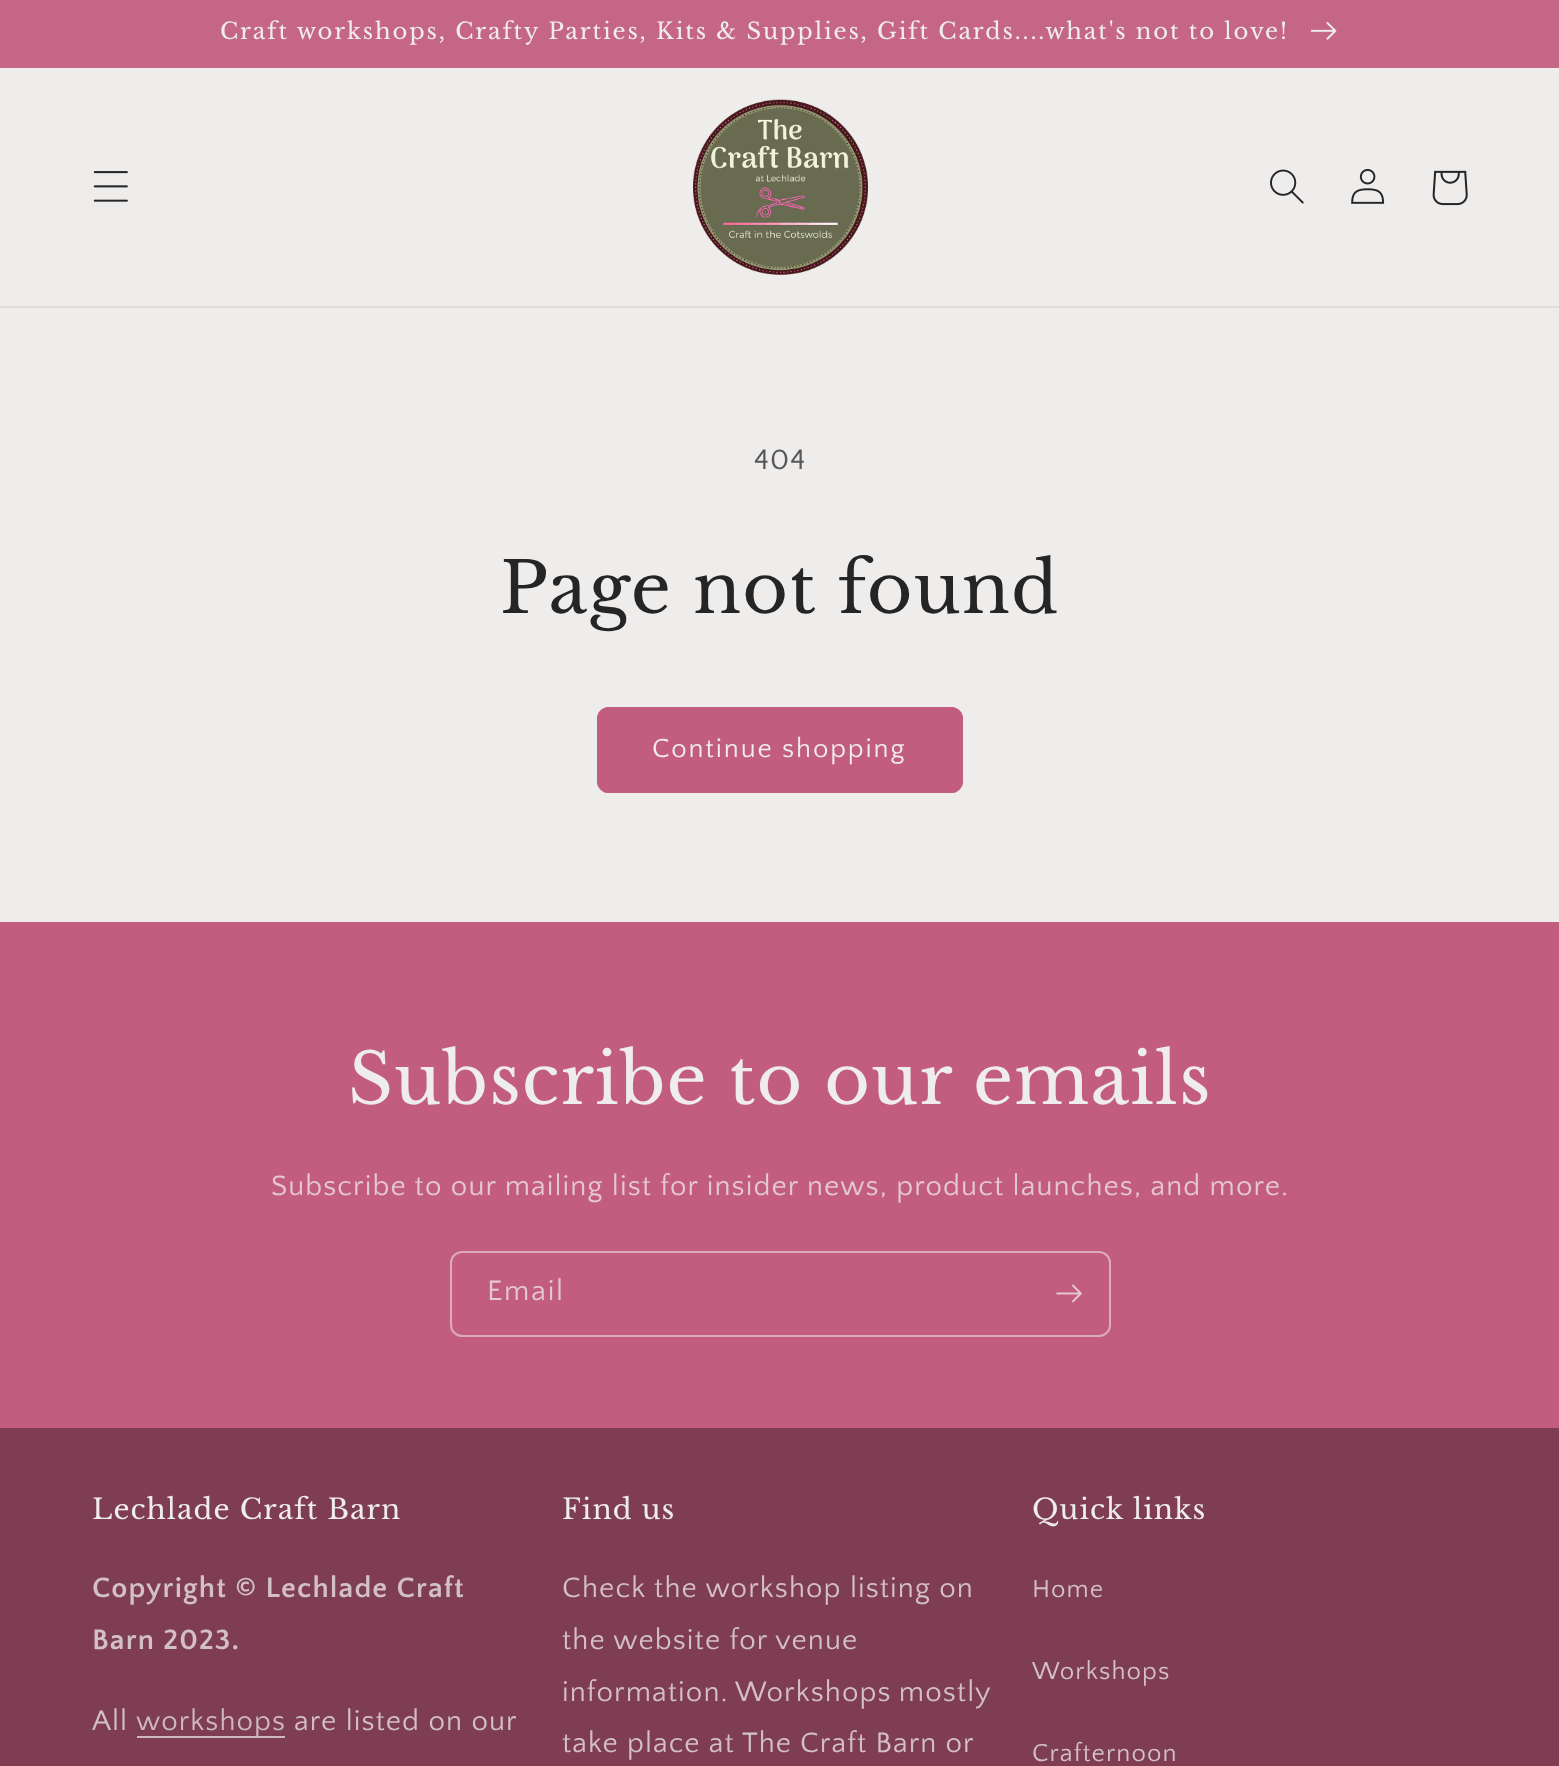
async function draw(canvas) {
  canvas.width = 1559;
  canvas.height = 1766;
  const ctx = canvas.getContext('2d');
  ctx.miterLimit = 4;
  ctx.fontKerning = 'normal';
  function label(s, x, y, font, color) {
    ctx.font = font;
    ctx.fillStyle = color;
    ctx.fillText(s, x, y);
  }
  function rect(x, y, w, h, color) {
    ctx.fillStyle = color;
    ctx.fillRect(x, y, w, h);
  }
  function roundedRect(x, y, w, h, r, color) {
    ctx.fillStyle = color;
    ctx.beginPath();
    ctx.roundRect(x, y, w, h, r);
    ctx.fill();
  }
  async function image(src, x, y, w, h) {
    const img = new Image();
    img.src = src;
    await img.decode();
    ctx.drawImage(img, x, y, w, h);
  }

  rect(0, 0, 1559, 1766, '#efecec');
  rect(0, 67, 1559, 1, '#c66888');
  rect(0, 0, 1559, 67, '#c56686');
  ctx.letterSpacing = '1.85px';
  label('Craft workshops, Crafty Parties, Kits & Supplies, Gift Cards....what\'s not to love!', 220, 39, '22.75px Libre Baskerville', '#efecec');
  await image('assets/img1.png', 1311, 22, 26, 18);
  rect(0, 306, 1559, 2, '#dfdcdc');
  await image('assets/img2.png', 93, 171, 35, 31);
  await image('assets/img3.png', 693, 99, 175, 176);
  await image('assets/img4.png', 1270, 169, 34, 35);
  await image('assets/img5.png', 1351, 169, 34, 35);
  await image('assets/img6.png', 1432, 170, 36, 36);
  ctx.letterSpacing = '1.1px';
  label('404', 754, 469, '29.4px Quattrocento Sans', '#585757');
  ctx.letterSpacing = '1.05px';
  label('Page not found', 500, 613, '70px Libre Baskerville', '#252525');
  roundedRect(597, 707, 366, 86, 12, '#c25d7f');
  ctx.beginPath();
  ctx.roundRect(598, 708, 364, 84, 11);
  ctx.strokeStyle = '#c25d7f';
  ctx.lineWidth = 2;
  ctx.stroke();
  ctx.letterSpacing = '1.85px';
  label('Continue shopping', 652, 757, '27.5px Quattrocento Sans', '#efecec');
  rect(0, 922, 1559, 506, '#c25d7f');
  ctx.letterSpacing = '1.05px';
  label('Subscribe to our emails', 348, 1104, '70px Libre Baskerville', '#efecec');
  ctx.letterSpacing = '1.1px';
  label('Subscribe to our mailing list for insider news, product launches, and more.', 271, 1195, '29.4px Quattrocento Sans', '#e4c8d1');
  ctx.beginPath();
  ctx.roundRect(451, 1252, 659, 84, 11);
  ctx.strokeStyle = '#dbacbb';
  ctx.stroke();
  ctx.letterSpacing = '1.85px';
  label('Email', 487, 1300, '29.4px Quattrocento Sans', '#e4c8d1');
  await image('assets/img7.png', 1056, 1284, 26, 19);
  rect(0, 1428, 1559, 338, '#7e3d53');
  ctx.letterSpacing = '1.05px';
  label('Lechlade Craft Barn', 92, 1519, '28px Libre Baskerville', '#efecec');
  ctx.letterSpacing = '1.1px';
  label('Copyright © Lechlade Craft', 92, 1597, 'bold 29.4px Quattrocento Sans', '#d3c0c6');
  label('Barn 2023.', 92, 1649, 'bold 29.4px Quattrocento Sans', '#d3c0c6');
  label('All', 92, 1730, '29.4px Quattrocento Sans', '#d3c0c6');
  rect(137, 1736, 148, 2, '#cdb8be');
  label('workshops', 136, 1730, '29.4px Quattrocento Sans', '#cdb8be');
  label('are listed on our', 294, 1730, '29.4px Quattrocento Sans', '#d3c0c6');
  ctx.letterSpacing = '1.05px';
  label('Find us', 562, 1519, '28px Libre Baskerville', '#efecec');
  ctx.letterSpacing = '1.1px';
  label('Check the workshop listing on', 562, 1597, '29.4px Quattrocento Sans', '#d3c0c6');
  label('the website for venue', 562, 1649, '29.4px Quattrocento Sans', '#d3c0c6');
  ctx.wordSpacing = '-1px';
  label('information. Workshops mostly', 562, 1701, '29.4px Quattrocento Sans', '#d3c0c6');
  ctx.wordSpacing = '-0.25px';
  label('take place at The Craft Barn or', 562, 1752, '29.4px Quattrocento Sans', '#d3c0c6');
  ctx.letterSpacing = '1.05px';
  ctx.wordSpacing = '0px';
  label('Quick links', 1032, 1519, '28px Libre Baskerville', '#efecec');
  ctx.letterSpacing = '1.1px';
  label('Home', 1032, 1597, '25.75px Quattrocento Sans', '#d3c0c6');
  label('Workshops', 1032, 1679, '25.75px Quattrocento Sans', '#d3c0c6');
  label('Crafternoon', 1032, 1761, '25.75px Quattrocento Sans', '#d3c0c6');
}

draw(document.querySelector('canvas'));
